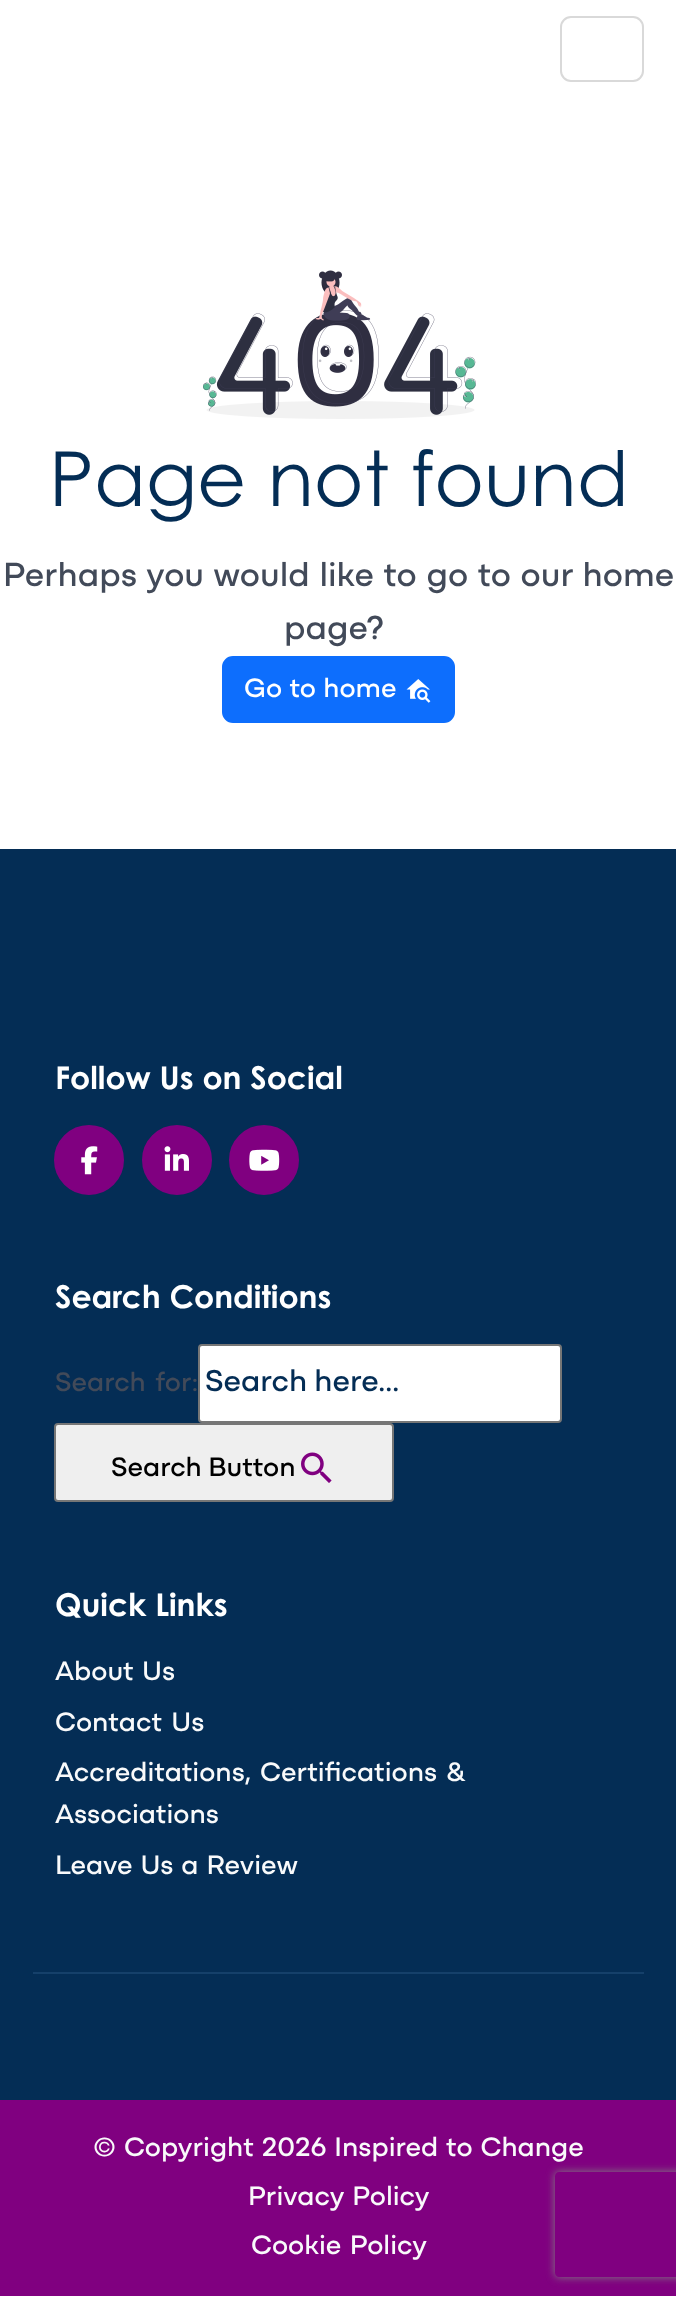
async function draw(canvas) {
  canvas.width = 676;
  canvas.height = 2300;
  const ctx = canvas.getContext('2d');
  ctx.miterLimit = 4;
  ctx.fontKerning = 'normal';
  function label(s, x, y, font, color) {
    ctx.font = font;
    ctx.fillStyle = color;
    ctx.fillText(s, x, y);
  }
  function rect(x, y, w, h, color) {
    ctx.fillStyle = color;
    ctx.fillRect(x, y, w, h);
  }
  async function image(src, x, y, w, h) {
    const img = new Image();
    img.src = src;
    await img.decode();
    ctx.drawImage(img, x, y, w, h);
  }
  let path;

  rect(0, 0, 676, 2300, '#fff');
  ctx.beginPath();
  ctx.roundRect(561, 17, 82, 64, 10);
  ctx.strokeStyle = '#d9d9d9';
  ctx.lineWidth = 2;
  ctx.stroke();
  await image('assets/img1.png', 203, 270, 273, 149);
  label('Page not found', 49, 506, '76px Century Gothic', '#042d55');
  ctx.wordSpacing = '1.75px';
  label('Perhaps you would like to go to our home', 3, 586, '35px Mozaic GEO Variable', '#424a59');
  ctx.wordSpacing = '0px';
  label('page?', 284, 639, '35px Mozaic GEO Variable', '#424a59');
  ctx.fillStyle = '#0d6efd';
  ctx.beginPath();
  ctx.roundRect(223, 657, 231, 65, 10);
  ctx.fill();
  ctx.strokeStyle = '#0d6efd';
  ctx.stroke();
  ctx.wordSpacing = '1px';
  label('Go to home', 244, 697, '28px Mozaic GEO Variable', '#fff');
  await image('assets/img2.png', 406, 679, 25, 24);
  rect(0, 849, 676, 1251, '#042d55');
  ctx.wordSpacing = '0px';
  label('Follow Us on Social', 55, 1089, 'bold 31.5px Century Gothic', '#fff');
  ctx.fillStyle = '#800080';
  ctx.beginPath();
  ctx.arc(89, 1160, 34, 0, 2 * Math.PI);
  ctx.fill();
  ctx.strokeStyle = '#800080';
  ctx.stroke();
  await image('assets/img3.png', 81, 1146, 17, 29);
  ctx.beginPath();
  ctx.arc(177, 1160, 34, 0, 2 * Math.PI);
  ctx.fill();
  ctx.stroke();
  await image('assets/img4.png', 164, 1146, 25, 25);
  ctx.beginPath();
  ctx.arc(264, 1160, 34, 0, 2 * Math.PI);
  ctx.fill();
  ctx.stroke();
  await image('assets/img5.png', 249, 1149, 31, 22);
  label('Search Conditions', 55, 1308, 'bold 31.5px Century Gothic', '#fff');
  ctx.wordSpacing = '3px';
  label('Search for:', 55, 1391, '28px Mozaic GEO Variable', '#424a59');
  ctx.fillStyle = '#fff';
  ctx.beginPath();
  ctx.roundRect(199, 1345, 362, 77, 3);
  ctx.fill();
  ctx.strokeStyle = '#767676';
  ctx.stroke();
  ctx.wordSpacing = '0px';
  label('Search here...', 205, 1391, '31.5px Mozaic GEO Variable', '#042d55');
  ctx.fillStyle = '#efefef';
  ctx.beginPath();
  ctx.roundRect(55, 1424, 338, 77, 3);
  ctx.fill();
  ctx.stroke();
  label('Search Button', 111, 1476, '28px Mozaic GEO Variable', '#000');
  await image('assets/img6.png', 301, 1452, 31, 31);
  label('Quick Links', 55, 1616, 'bold 31.5px Century Gothic', '#fff');
  ctx.wordSpacing = '2px';
  label('About Us', 55, 1680, '28px Mozaic GEO Variable', '#f9fafb');
  ctx.wordSpacing = '3px';
  label('Contact Us', 55, 1731, '28px Mozaic GEO Variable', '#f9fafb');
  label('Accreditations, Certifications &', 55, 1781, '28px Mozaic GEO Variable', '#f9fafb');
  ctx.wordSpacing = '0px';
  label('Associations', 55, 1823, '28px Mozaic GEO Variable', '#f9fafb');
  ctx.wordSpacing = '1.5px';
  label('Leave Us a Review', 55, 1874, '28px Mozaic GEO Variable', '#f9fafb');
  rect(33, 1972, 611, 2, '#15406a');
  rect(0, 2100, 676, 196, '#800080');
  label('© Copyright 2026 Inspired to Change', 93, 2156, '28px Mozaic GEO Variable', '#f9fafb');
  ctx.wordSpacing = '2px';
  label('Privacy Policy', 248, 2205, '28px Mozaic GEO Variable', '#f9fafb');
  label('Cookie Policy', 251, 2254, '28px Mozaic GEO Variable', '#f9fafb');
  ctx.save();
  path = new Path2D('M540 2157H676V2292H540ZM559 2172H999C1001 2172 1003 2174 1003 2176V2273C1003 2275 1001 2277 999 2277H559C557 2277 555 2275 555 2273V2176C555 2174 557 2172 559 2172Z');
  ctx.clip(path, 'evenodd');
  ctx.fillStyle = '#808080';
  ctx.filter = 'blur(4.5px)';
  ctx.beginPath();
  ctx.roundRect(555, 2172, 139, 105, 4);
  ctx.fill();
  ctx.filter = 'none';
  ctx.restore();
}

draw(document.querySelector('canvas'));
